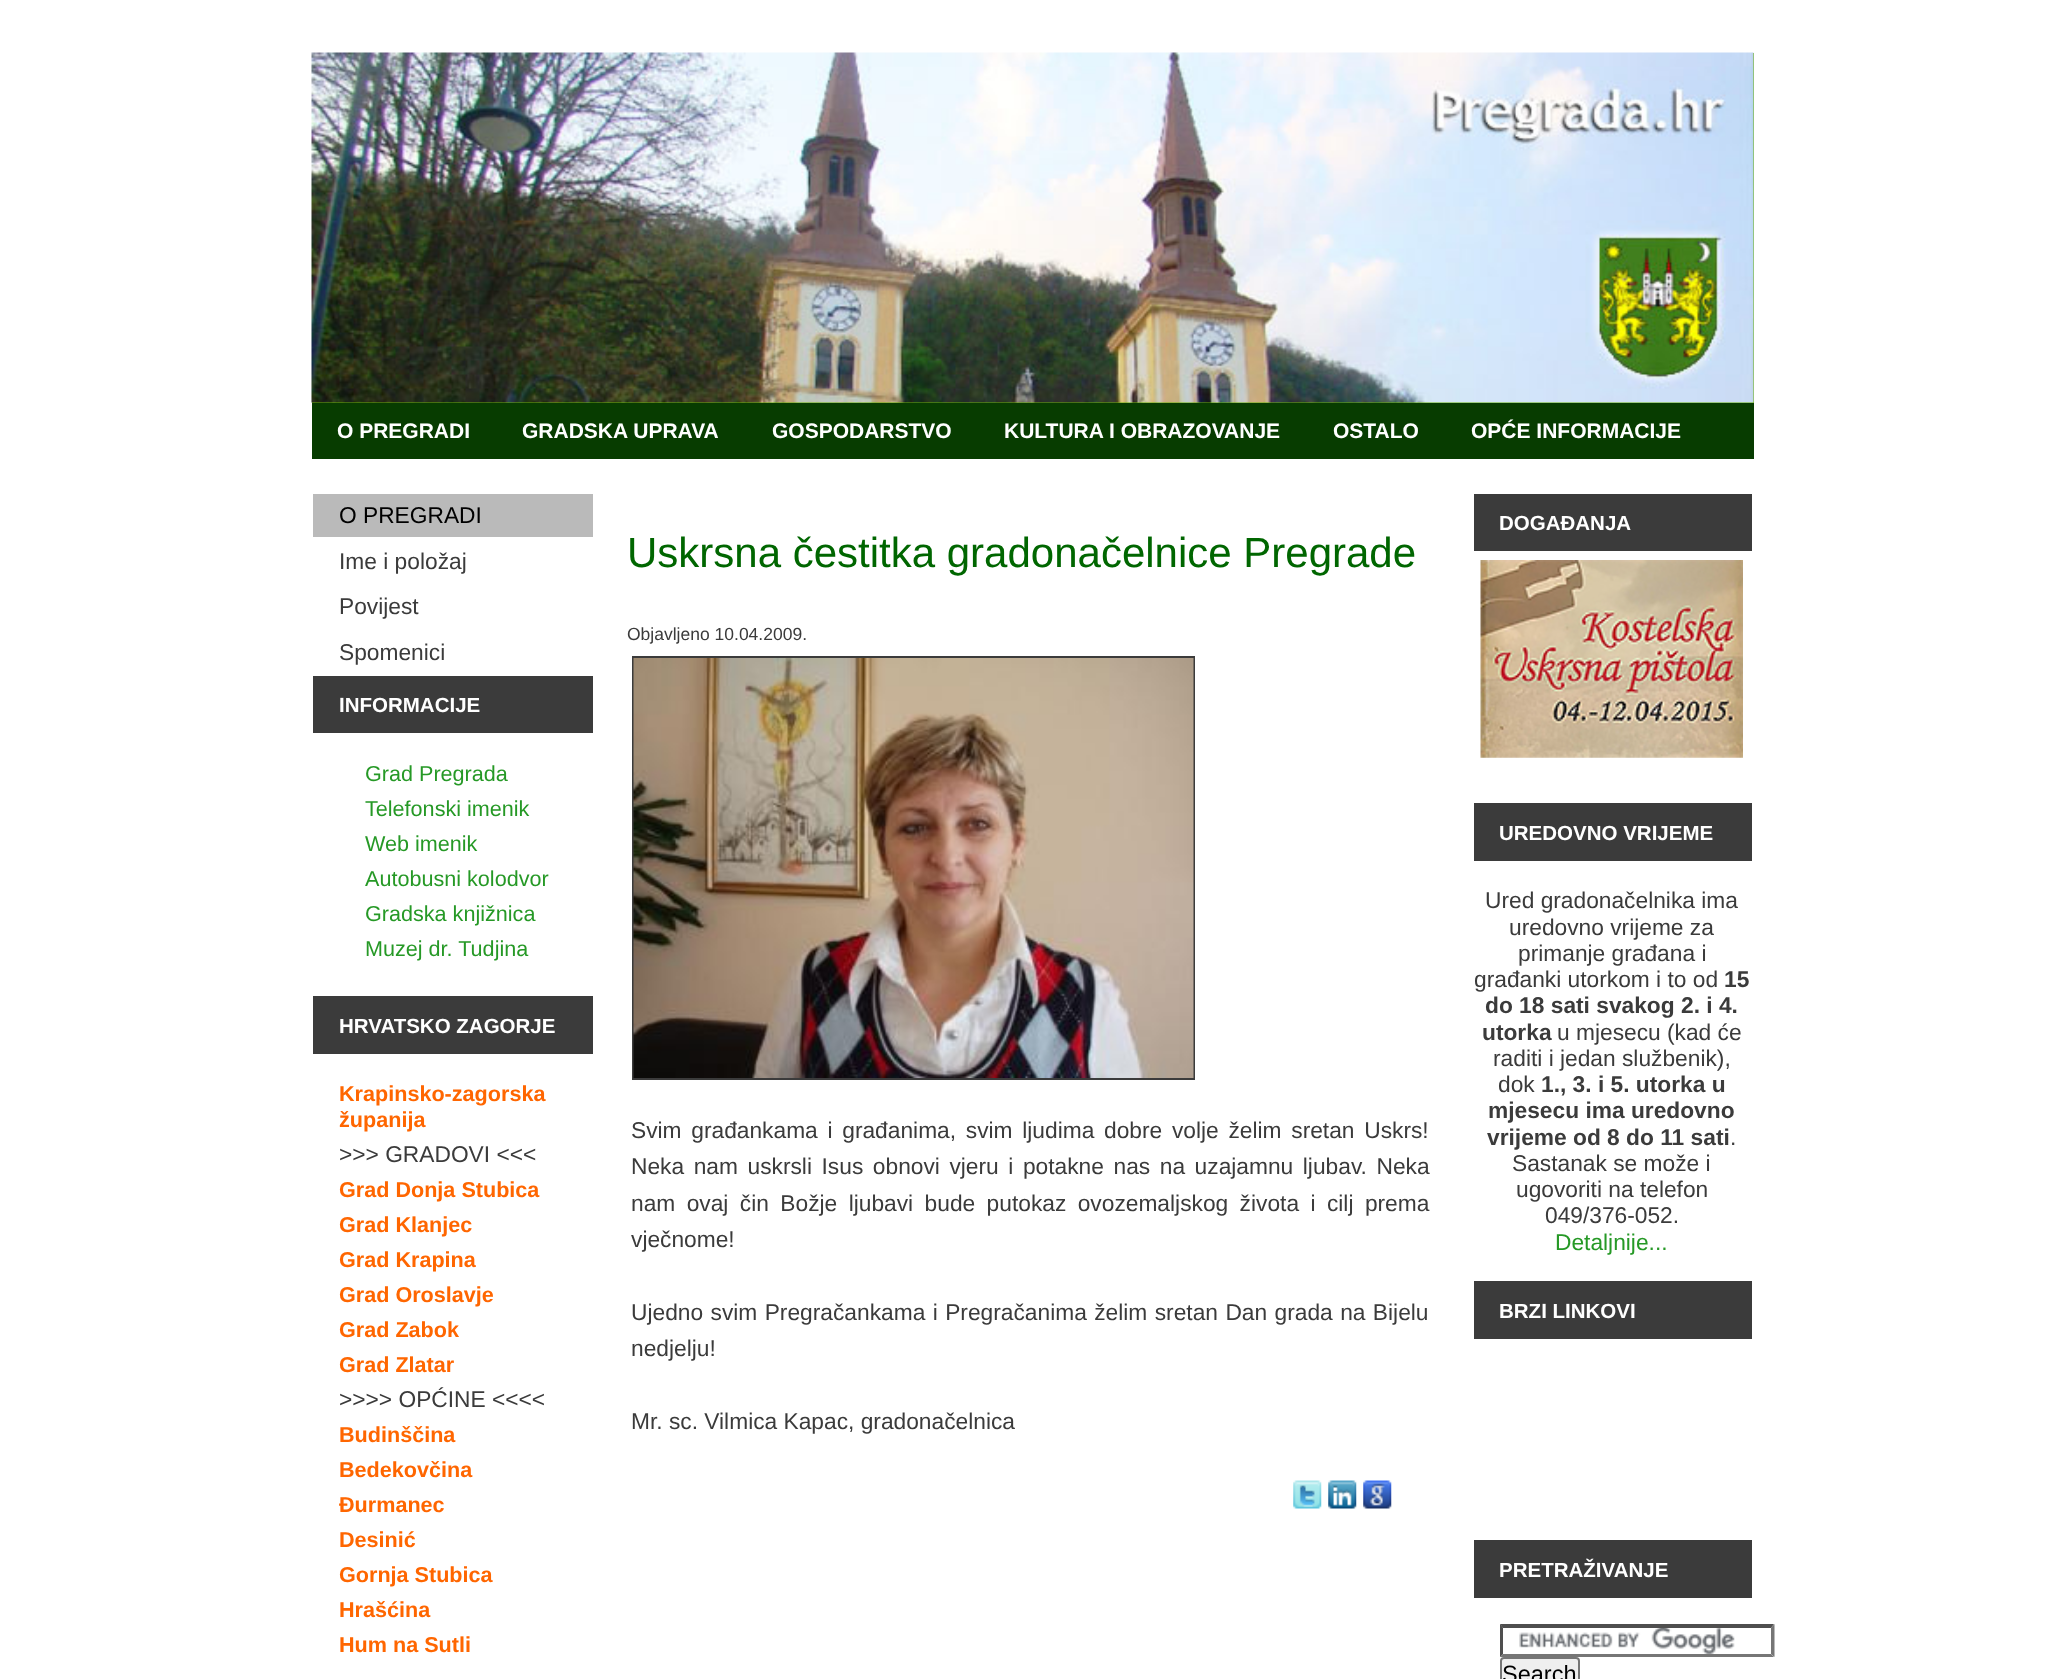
async function draw(canvas) {
  canvas.width = 2063;
  canvas.height = 1679;
  const ctx = canvas.getContext('2d');
  ctx.miterLimit = 4;
  ctx.fontKerning = 'normal';
  function label(s, x, y, font, color) {
    ctx.font = font;
    ctx.fillStyle = color;
    ctx.fillText(s, x, y);
  }
  function rect(x, y, w, h, color) {
    ctx.fillStyle = color;
    ctx.fillRect(x, y, w, h);
  }
  async function image(src, x, y, w, h) {
    const img = new Image();
    img.src = src;
    await img.decode();
    ctx.drawImage(img, x, y, w, h);
  }
  let path;

  rect(0, 0, 2063, 1679, '#fff');
  rect(312, 53, 1442, 350, '#69b10a');
  await image('assets/img1.png', 311, 52, 1443, 351);
  rect(312, 403, 1442, 56, '#073c00');
  label('O PREGRADI', 337, 438, 'bold 21px Liberation Sans', '#fff');
  label('GRADSKA UPRAVA', 522, 438, 'bold 21px Liberation Sans', '#fff');
  label('GOSPODARSTVO', 772, 438, 'bold 21px Liberation Sans', '#fff');
  label('KULTURA I OBRAZOVANJE', 1004, 438, 'bold 21px Liberation Sans', '#fff');
  label('OSTALO', 1333, 438, 'bold 21px Liberation Sans', '#fff');
  label('OPĆE INFORMACIJE', 1471, 438, 'bold 21px Liberation Sans', '#fff');
  rect(313, 494, 280, 43, '#bababa');
  label('O PREGRADI', 339, 523, '22.75px Liberation Sans', '#000');
  label('Ime i položaj', 339, 569, '22.75px Liberation Sans', '#3b3b3b');
  label('Povijest', 339, 614, '22.75px Liberation Sans', '#3b3b3b');
  label('Spomenici', 339, 660, '22.75px Liberation Sans', '#3b3b3b');
  rect(313, 676, 280, 57, '#3b3b3b');
  label('INFORMACIJE', 339, 712, 'bold 20.5px Liberation Sans', '#fff');
  label('Grad Pregrada', 365, 781, '21.6px Liberation Sans', '#269926');
  label('Telefonski imenik', 365, 816, '21.6px Liberation Sans', '#269926');
  label('Web imenik', 365, 851, '21.6px Liberation Sans', '#269926');
  label('Autobusni kolodvor', 365, 886, '21.6px Liberation Sans', '#269926');
  label('Gradska knjižnica', 365, 921, '21.6px Liberation Sans', '#269926');
  label('Muzej dr. Tudjina', 365, 956, '21.6px Liberation Sans', '#269926');
  rect(313, 996, 280, 58, '#3b3b3b');
  label('HRVATSKO ZAGORJE', 339, 1033, 'bold 20.5px Liberation Sans', '#fff');
  label('Krapinsko-zagorska', 339, 1101, 'bold 21.6px Liberation Sans', '#f60');
  label('županija', 339, 1127, 'bold 21.6px Liberation Sans', '#f60');
  label('>>> GRADOVI <<<', 339, 1162, '22.75px Liberation Sans', '#3b3b3b');
  label('Grad Donja Stubica', 339, 1197, 'bold 21.6px Liberation Sans', '#f60');
  label('Grad Klanjec', 339, 1232, 'bold 21.6px Liberation Sans', '#f60');
  label('Grad Krapina', 339, 1267, 'bold 21.6px Liberation Sans', '#f60');
  label('Grad Oroslavje', 339, 1302, 'bold 21.6px Liberation Sans', '#f60');
  label('Grad Zabok', 339, 1337, 'bold 21.6px Liberation Sans', '#f60');
  label('Grad Zlatar', 339, 1372, 'bold 21.6px Liberation Sans', '#f60');
  label('>>>> OPĆINE <<<<', 339, 1407, '22.75px Liberation Sans', '#3b3b3b');
  label('Budinščina', 339, 1442, 'bold 21.6px Liberation Sans', '#f60');
  label('Bedekovčina', 339, 1477, 'bold 21.6px Liberation Sans', '#f60');
  label('Đurmanec', 339, 1512, 'bold 21.6px Liberation Sans', '#f60');
  label('Desinić', 339, 1547, 'bold 21.6px Liberation Sans', '#f60');
  label('Gornja Stubica', 339, 1582, 'bold 21.6px Liberation Sans', '#f60');
  label('Hrašćina', 339, 1617, 'bold 21.6px Liberation Sans', '#f60');
  label('Hum na Sutli', 339, 1652, 'bold 21.6px Liberation Sans', '#f60');
  label('Uskrsna čestitka gradonačelnice Pregrade', 627, 567, '42px Liberation Sans', '#060');
  label('Objavljeno 10.04.2009.', 627, 640, '17.5px Liberation Sans', '#3b3b3b');
  ctx.strokeStyle = '#3b3b3b';
  ctx.lineWidth = 2;
  ctx.strokeRect(633, 657, 561, 422);
  await image('assets/img2.png', 633, 658, 561, 420);
  ctx.wordSpacing = '3.4px';
  label('Svim građankama i građanima, svim ljudima dobre volje želim sretan Uskrs!', 631, 1138, '22.75px Liberation Sans', '#3b3b3b');
  ctx.wordSpacing = '3.25px';
  label('Neka nam uskrsli Isus obnovi vjeru i potakne nas na uzajamnu ljubav. Neka', 631, 1174, '22.75px Liberation Sans', '#3b3b3b');
  ctx.wordSpacing = '5.1px';
  label('nam ovaj čin Božje ljubavi bude putokaz ovozemaljskog života i cilj prema', 631, 1211, '22.75px Liberation Sans', '#3b3b3b');
  ctx.wordSpacing = '0px';
  label('vječnome!', 631, 1247, '22.75px Liberation Sans', '#3b3b3b');
  ctx.wordSpacing = '1.1px';
  label('Ujedno svim Pregračankama i Pregračanima želim sretan Dan grada na Bijelu', 631, 1320, '22.75px Liberation Sans', '#3b3b3b');
  ctx.wordSpacing = '0px';
  label('nedjelju!', 631, 1356, '22.75px Liberation Sans', '#3b3b3b');
  label('Mr. sc. Vilmica Kapac, gradonačelnica', 631, 1429, '22.75px Liberation Sans', '#3b3b3b');
  await image('assets/img3.png', 1293, 1480, 29, 29);
  await image('assets/img4.png', 1328, 1480, 29, 29);
  await image('assets/img5.png', 1363, 1480, 29, 29);
  rect(1474, 494, 278, 57, '#3b3b3b');
  label('DOGAĐANJA', 1499, 530, 'bold 20.5px Liberation Sans', '#fff');
  await image('assets/img6.png', 1480, 560, 263, 198);
  rect(1474, 803, 278, 58, '#3b3b3b');
  label('UREDOVNO VRIJEME', 1499, 840, 'bold 20.5px Liberation Sans', '#fff');
  label('Ured gradonačelnika ima', 1485, 908, '22.75px Liberation Sans', '#3b3b3b');
  label('uredovno vrijeme za', 1509, 935, '22.75px Liberation Sans', '#3b3b3b');
  label('primanje građana i', 1518, 961, '22.75px Liberation Sans', '#3b3b3b');
  label('građanki utorkom i to od', 1474, 987, '22.75px Liberation Sans', '#3b3b3b');
  label('15', 1724, 987, 'bold 22.75px Liberation Sans', '#3b3b3b');
  label('do 18 sati svakog 2. i 4.', 1485, 1013, 'bold 22.75px Liberation Sans', '#3b3b3b');
  label('utorka', 1482, 1040, 'bold 22.75px Liberation Sans', '#3b3b3b');
  label('u mjesecu (kad će', 1557, 1040, '22.75px Liberation Sans', '#3b3b3b');
  label('raditi i jedan službenik),', 1493, 1066, '22.75px Liberation Sans', '#3b3b3b');
  label('dok', 1498, 1092, '22.75px Liberation Sans', '#3b3b3b');
  label('1., 3. i 5. utorka u', 1541, 1092, 'bold 22.75px Liberation Sans', '#3b3b3b');
  label('mjesecu ima uredovno', 1488, 1118, 'bold 22.75px Liberation Sans', '#3b3b3b');
  label('vrijeme od 8 do 11 sati', 1487, 1145, 'bold 22.75px Liberation Sans', '#3b3b3b');
  label('.', 1730, 1145, '22.75px Liberation Sans', '#3b3b3b');
  label('Sastanak se može i', 1512, 1171, '22.75px Liberation Sans', '#3b3b3b');
  label('ugovoriti na telefon', 1516, 1197, '22.75px Liberation Sans', '#3b3b3b');
  label('049/376-052.', 1545, 1223, '22.75px Liberation Sans', '#3b3b3b');
  label('Detaljnije...', 1555, 1250, '22.75px Liberation Sans', '#269926');
  rect(1474, 1281, 278, 58, '#3b3b3b');
  label('BRZI LINKOVI', 1499, 1318, 'bold 20.5px Liberation Sans', '#fff');
  rect(1474, 1540, 278, 58, '#3b3b3b');
  label('PRETRAŽIVANJE', 1499, 1577, 'bold 20.5px Liberation Sans', '#fff');
  await image('assets/img7.png', 1519, 1628, 216, 26);
  ctx.fillStyle = '#4f4f4f';
  path = new Path2D('M1500 1624H1774L1771 1628H1503Z');
  ctx.fill(path);
  ctx.fillStyle = '#767676';
  path = new Path2D('M1774.5 1624V1657L1771 1654V1627.5Z');
  ctx.fill(path);
  path = new Path2D('M1774 1657H1500L1503 1654H1771Z');
  ctx.fill(path);
  ctx.fillStyle = '#4f4f4f';
  path = new Path2D('M1500 1657V1624L1503 1627.5V1654Z');
  ctx.fill(path);
  ctx.fillStyle = '#efefef';
  ctx.beginPath();
  ctx.roundRect(1501, 1658, 78, 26, 3);
  ctx.fill();
  ctx.strokeStyle = '#767676';
  ctx.stroke();
  label('Search', 1502, 1682, '23.5px Liberation Sans', '#000');
}

draw(document.querySelector('canvas'));
